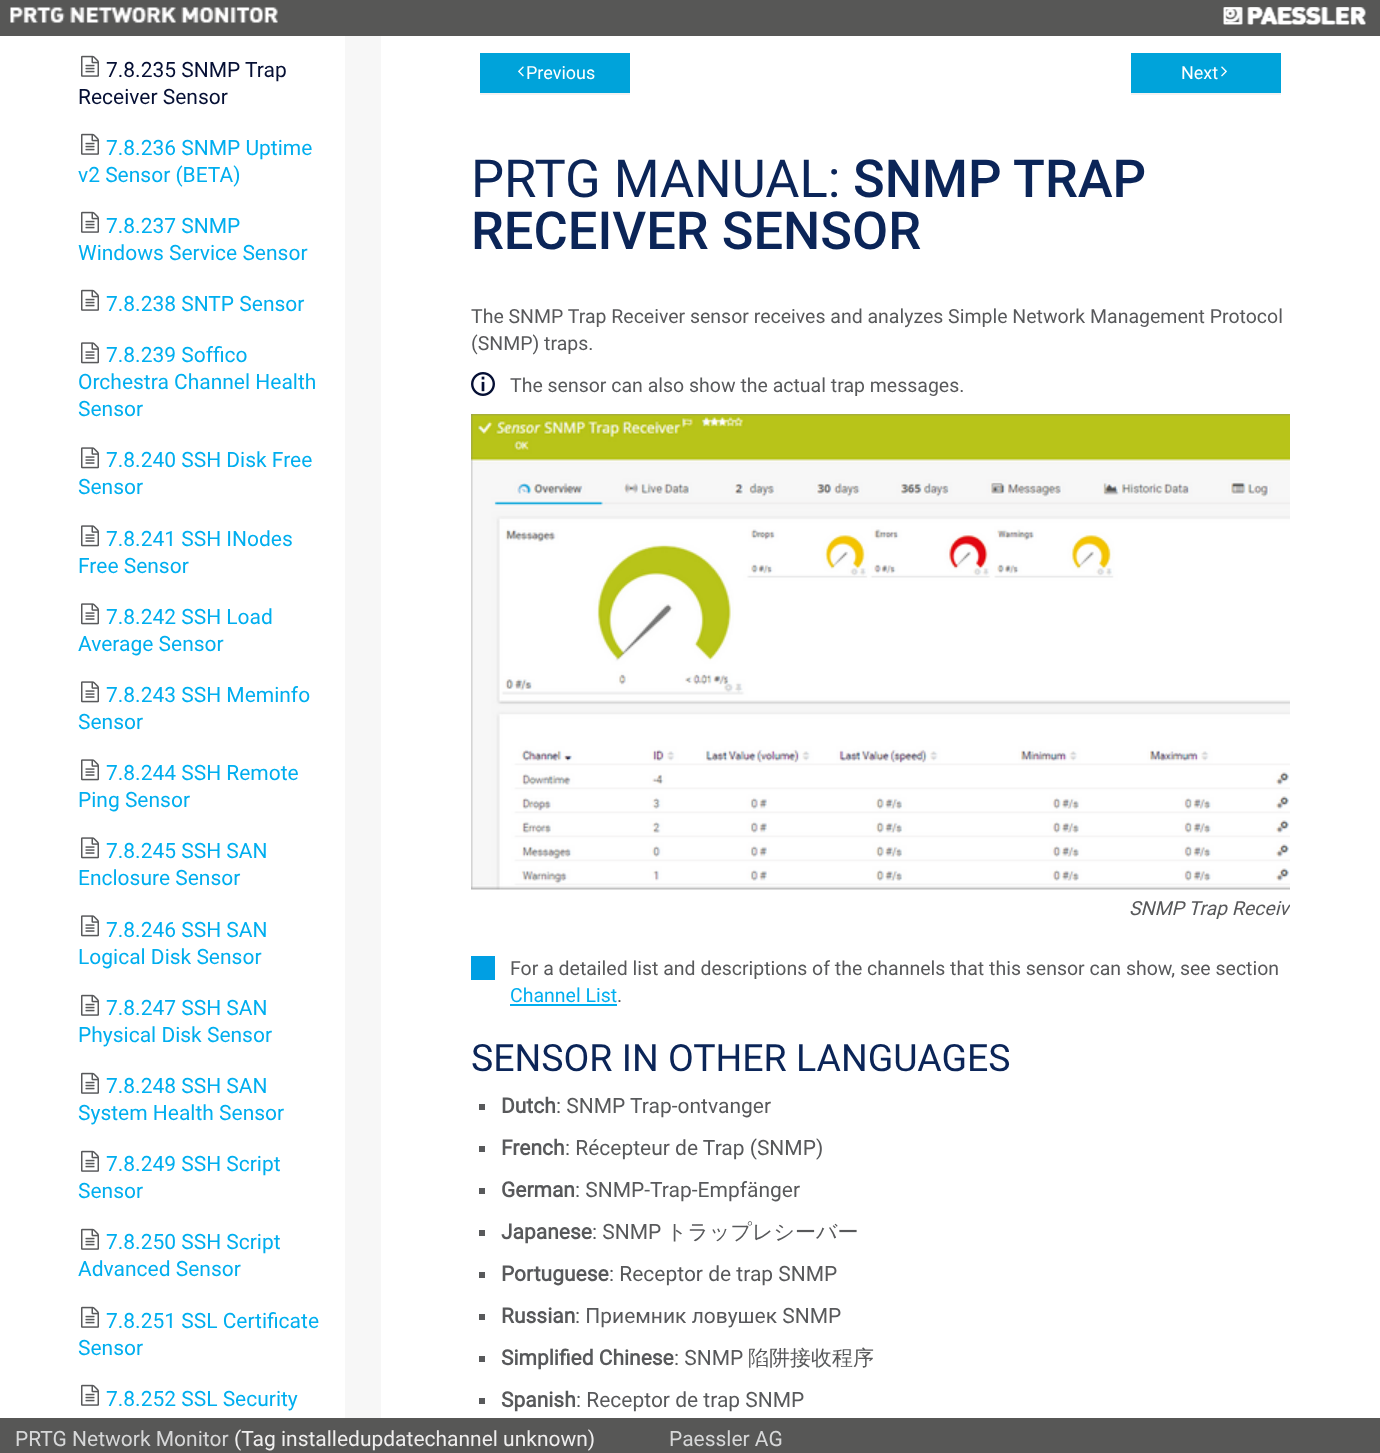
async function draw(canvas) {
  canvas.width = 1380;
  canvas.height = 1453;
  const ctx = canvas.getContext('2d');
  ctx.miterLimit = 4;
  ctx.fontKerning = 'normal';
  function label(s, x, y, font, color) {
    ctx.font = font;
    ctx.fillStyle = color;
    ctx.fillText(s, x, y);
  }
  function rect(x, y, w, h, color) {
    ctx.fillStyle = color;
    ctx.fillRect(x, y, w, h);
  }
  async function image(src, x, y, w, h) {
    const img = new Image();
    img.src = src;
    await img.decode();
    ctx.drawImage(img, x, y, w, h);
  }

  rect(0, 0, 1380, 1453, '#f7f7f7');
  rect(0, 0, 1380, 36, '#575756');
  await image('assets/img1.png', 10, 7, 268, 16);
  await image('assets/img2.png', 1223, 7, 143, 18);
  await image('assets/img3.png', 1223, 7, 143, 18);
  rect(0, 36, 345, 1382, '#fff');
  await image('assets/img4.png', 81, 55, 18, 22);
  label('7.8.235 SNMP Trap', 106, 77, '21px Roboto', '#050f34');
  label('Receiver Sensor', 78, 104, '21px Roboto', '#050f34');
  await image('assets/img4.png', 81, 133, 18, 22);
  label('7.8.236 SNMP Uptime', 106, 155, '21px Roboto', '#00aeef');
  label('v2 Sensor (BETA)', 78, 182, '21px Roboto', '#00aeef');
  await image('assets/img4.png', 81, 211, 18, 22);
  label('7.8.237 SNMP', 106, 233, '21px Roboto', '#00aeef');
  label('Windows Service Sensor', 78, 260, '21px Roboto', '#00aeef');
  await image('assets/img4.png', 81, 289, 18, 22);
  label('7.8.238 SNTP Sensor', 106, 311, '21px Roboto', '#00aeef');
  await image('assets/img5.png', 81, 342, 18, 22);
  label('7.8.239 Soffico', 106, 362, '21px Roboto', '#00aeef');
  label('Orchestra Channel Health', 78, 389, '21px Roboto', '#00aeef');
  label('Sensor', 78, 416, '21px Roboto', '#00aeef');
  await image('assets/img5.png', 81, 447, 18, 22);
  label('7.8.240 SSH Disk Free', 106, 467, '21px Roboto', '#00aeef');
  label('Sensor', 78, 494, '21px Roboto', '#00aeef');
  await image('assets/img5.png', 81, 525, 18, 22);
  label('7.8.241 SSH INodes', 106, 546, '21px Roboto', '#00aeef');
  label('Free Sensor', 78, 573, '21px Roboto', '#00aeef');
  await image('assets/img5.png', 81, 603, 18, 22);
  label('7.8.242 SSH Load', 106, 624, '21px Roboto', '#00aeef');
  label('Average Sensor', 78, 651, '21px Roboto', '#00aeef');
  await image('assets/img5.png', 81, 681, 18, 22);
  label('7.8.243 SSH Meminfo', 106, 702, '21px Roboto', '#00aeef');
  label('Sensor', 78, 729, '21px Roboto', '#00aeef');
  await image('assets/img5.png', 81, 759, 18, 22);
  label('7.8.244 SSH Remote', 106, 780, '21px Roboto', '#00aeef');
  label('Ping Sensor', 78, 807, '21px Roboto', '#00aeef');
  await image('assets/img5.png', 81, 837, 18, 22);
  label('7.8.245 SSH SAN', 106, 858, '21px Roboto', '#00aeef');
  label('Enclosure Sensor', 78, 885, '21px Roboto', '#00aeef');
  await image('assets/img5.png', 81, 915, 18, 22);
  label('7.8.246 SSH SAN', 106, 937, '21px Roboto', '#00aeef');
  label('Logical Disk Sensor', 78, 964, '21px Roboto', '#00aeef');
  await image('assets/img4.png', 81, 994, 18, 22);
  label('7.8.247 SSH SAN', 106, 1015, '21px Roboto', '#00aeef');
  label('Physical Disk Sensor', 78, 1042, '21px Roboto', '#00aeef');
  await image('assets/img4.png', 81, 1072, 18, 22);
  label('7.8.248 SSH SAN', 106, 1093, '21px Roboto', '#00aeef');
  label('System Health Sensor', 78, 1120, '21px Roboto', '#00aeef');
  await image('assets/img4.png', 81, 1150, 18, 22);
  label('7.8.249 SSH Script', 106, 1171, '21px Roboto', '#00aeef');
  label('Sensor', 78, 1198, '21px Roboto', '#00aeef');
  await image('assets/img4.png', 81, 1228, 18, 22);
  label('7.8.250 SSH Script', 106, 1249, '21px Roboto', '#00aeef');
  label('Advanced Sensor', 78, 1276, '21px Roboto', '#00aeef');
  await image('assets/img4.png', 81, 1306, 18, 22);
  label('7.8.251 SSL Certificate', 106, 1328, '21px Roboto', '#00aeef');
  label('Sensor', 78, 1355, '21px Roboto', '#00aeef');
  await image('assets/img4.png', 81, 1384, 18, 22);
  label('7.8.252 SSL Security', 106, 1406, '21px Roboto', '#00aeef');
  rect(381, 36, 999, 1382, '#fff');
  rect(480, 93, 150, 2, '#f2f2f2');
  rect(480, 53, 150, 40, '#00a3da');
  await image('assets/img6.png', 518, 66, 6, 11);
  label('Previous', 526, 79, '18px Roboto', '#fff');
  rect(1131, 93, 150, 2, '#f2f2f2');
  rect(1131, 53, 150, 40, '#00a3da');
  label('Next', 1181, 79, '18px Roboto', '#fff');
  await image('assets/img7.png', 1221, 66, 6, 11);
  label('PRTG MANUAL:', 471, 197, '52.5px Roboto', '#0b2558');
  label('SNMP TRAP', 853, 197, '500 52.5px Roboto', '#0b2558');
  label('RECEIVER SENSOR', 471, 249, '500 52.5px Roboto', '#0b2558');
  label('The SNMP Trap Receiver sensor receives and analyzes Simple Network Management Protocol', 471, 323, '19.5px Roboto', '#58595b');
  label('(SNMP) traps.', 471, 350, '19.5px Roboto', '#58595b');
  await image('assets/img8.png', 471, 372, 24, 24);
  label('The sensor can also show the actual trap messages.', 510, 392, '19.5px Roboto', '#58595b');
  await image('assets/img9.png', 471, 414, 819, 476);
  ctx.save();
  ctx.beginPath();
  ctx.rect(471, 303, 819, 1116);
  ctx.clip();
  label('SNMP Trap Receiv', 1129, 915, 'italic 19.5px Roboto', '#58595b');
  ctx.restore();
  rect(471, 956, 24, 24, '#009fe3');
  label('For a detailed list and descriptions of the channels that this sensor can show, see section', 510, 975, '19.5px Roboto', '#58595b');
  label('Channel List', 510, 1002, '19.5px Roboto', '#00aeef');
  rect(510, 1004, 107, 2, '#00aeef');
  label('.', 617, 1002, '19.5px Roboto', '#58595b');
  label('SENSOR IN OTHER LANGUAGES', 471, 1071, '37.5px Roboto', '#0b2558');
  rect(479, 1104, 6, 6, '#58595b');
  label('Dutch', 501, 1113, 'bold 21px Roboto', '#58595b');
  label(': SNMP Trap-ontvanger', 556, 1113, '21px Roboto', '#58595b');
  rect(479, 1146, 6, 6, '#58595b');
  label('French', 501, 1155, 'bold 21px Roboto', '#58595b');
  label(': Récepteur de Trap (SNMP)', 565, 1155, '21px Roboto', '#58595b');
  rect(479, 1188, 6, 6, '#58595b');
  label('German', 501, 1197, 'bold 21px Roboto', '#58595b');
  label(': SNMP-Trap-Empfänger', 575, 1197, '21px Roboto', '#58595b');
  rect(479, 1230, 6, 6, '#58595b');
  label('Japanese', 501, 1239, 'bold 21px Roboto', '#58595b');
  label(': SNMP', 592, 1239, '21px Roboto', '#58595b');
  label('トラップレシーバー', 666, 1239, '500 21px WenQuanYi Zen Hei', '#58595b');
  rect(479, 1272, 6, 6, '#58595b');
  label('Portuguese', 501, 1281, 'bold 21px Roboto', '#58595b');
  label(': Receptor de trap SNMP', 609, 1281, '21px Roboto', '#58595b');
  rect(479, 1314, 6, 6, '#58595b');
  label('Russian', 501, 1323, 'bold 21px Roboto', '#58595b');
  label(': Приемник ловушек SNMP', 575, 1323, '21px Roboto', '#58595b');
  rect(479, 1356, 6, 6, '#58595b');
  label('Simplified Chinese', 501, 1365, 'bold 21px Roboto', '#58595b');
  label(': SNMP', 674, 1365, '21px Roboto', '#58595b');
  label('陷阱接收程序', 748, 1365, '500 21px WenQuanYi Zen Hei', '#58595b');
  rect(479, 1398, 6, 6, '#58595b');
  label('Spanish', 501, 1407, 'bold 21px Roboto', '#58595b');
  label(': Receptor de trap SNMP', 576, 1407, '21px Roboto', '#58595b');
  rect(0, 1418, 1380, 35, '#575756');
  label('PRTG Network Monitor', 15, 1446, '21px Roboto', '#d6d7d8');
  label('(Tag installedupdatechannel unknown)', 234, 1446, '21px Roboto', '#efeeee');
  label('Paessler AG', 669, 1446, '21px Roboto', '#d6d7d8');
}

draw(document.querySelector('canvas'));
